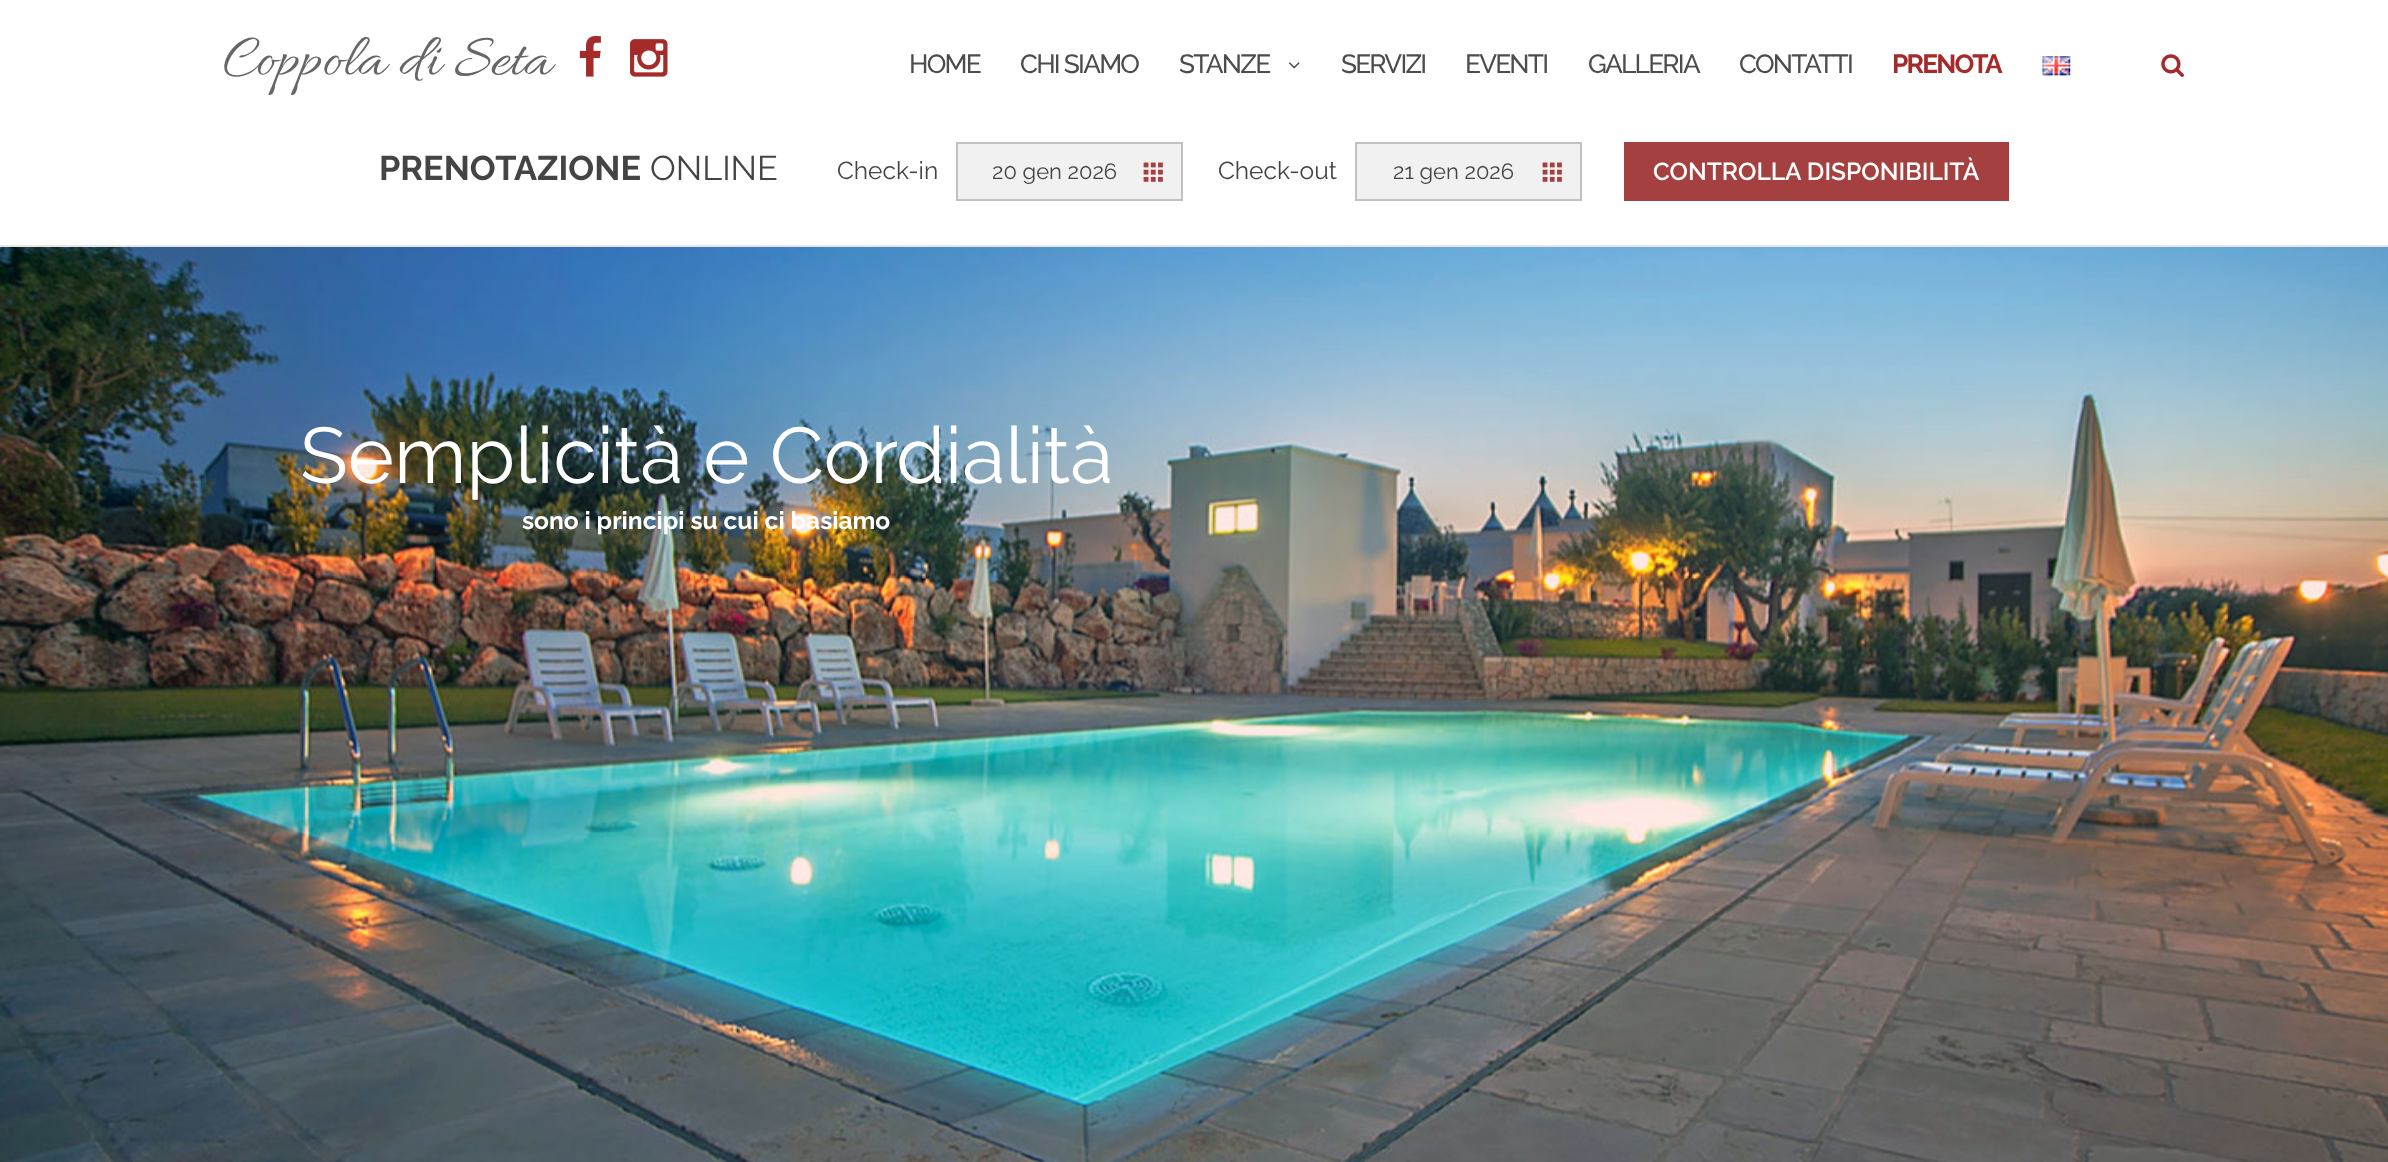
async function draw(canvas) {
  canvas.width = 2388;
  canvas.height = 1162;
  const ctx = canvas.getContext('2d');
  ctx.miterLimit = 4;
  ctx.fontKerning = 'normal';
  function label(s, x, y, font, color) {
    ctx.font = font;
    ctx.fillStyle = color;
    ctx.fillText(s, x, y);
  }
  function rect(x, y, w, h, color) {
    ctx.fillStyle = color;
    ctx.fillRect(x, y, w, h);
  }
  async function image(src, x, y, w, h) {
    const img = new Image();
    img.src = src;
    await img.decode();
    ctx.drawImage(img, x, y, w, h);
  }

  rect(0, 0, 2388, 1162, '#fff');
  rect(0, 245, 2388, 2, '#e6e6e6');
  label('Coppola di Seta', 223, 74, '61.25px Allura', '#666');
  await image('assets/img1.png', 579, 36, 22, 41);
  await image('assets/img2.png', 630, 39, 38, 38);
  ctx.letterSpacing = '-1.75px';
  label('HOME', 909, 73, '500 26.25px Raleway', '#4c4c4c');
  label('CHI SIAMO', 1020, 73, '500 26.25px Raleway', '#4c4c4c');
  label('STANZE', 1179, 73, '500 26.25px Raleway', '#4c4c4c');
  await image('assets/img3.png', 1288, 62, 12, 7);
  label('SERVIZI', 1341, 73, '500 26.25px Raleway', '#4c4c4c');
  label('EVENTI', 1465, 73, '500 26.25px Raleway', '#4c4c4c');
  label('GALLERIA', 1588, 73, '500 26.25px Raleway', '#4c4c4c');
  label('CONTATTI', 1739, 73, '500 26.25px Raleway', '#4c4c4c');
  label('PRENOTA', 1892, 73, 'bold 26.25px Raleway', '#a52a2a');
  await image('assets/img4.png', 2041, 56, 30, 20);
  await image('assets/img5.png', 2161, 54, 23, 23);
  ctx.letterSpacing = '0px';
  label('PRENOTAZIONE', 379, 180, 'bold 34.25px Raleway', '#444');
  label('ONLINE', 650, 180, '34.25px Raleway', '#444');
  label('Check-in', 837, 179, '24.5px Raleway', '#444');
  ctx.fillStyle = '#f1f1f1';
  ctx.beginPath();
  ctx.rect(957, 143, 225, 57);
  ctx.fill();
  ctx.strokeStyle = '#c1c1c1';
  ctx.lineWidth = 2;
  ctx.stroke();
  label('20 gen 2026', 992, 179, '22px Raleway', '#444');
  await image('assets/img6.png', 1143, 162, 20, 20);
  label('Check-out', 1218, 179, '24.5px Raleway', '#444');
  ctx.fillStyle = '#f1f1f1';
  ctx.beginPath();
  ctx.rect(1356, 143, 225, 57);
  ctx.fill();
  ctx.stroke();
  label('21 gen 2026', 1393, 179, '22px Raleway', '#444');
  await image('assets/img6.png', 1542, 162, 20, 20);
  rect(1624, 142, 385, 59, '#a54040');
  label('CONTROLLA DISPONIBILITÀ', 1653, 180, '600 24.5px Raleway', '#fff');
  await image('assets/img7.png', 0, 247, 2388, 915);
  label('Semplicità e Cordialità', 300, 483, '78.75px Raleway', '#fff');
  label('sono i principi su cui ci basiamo', 522, 529, 'bold 24.5px Raleway', '#fff');
}

draw(document.querySelector('canvas'));
